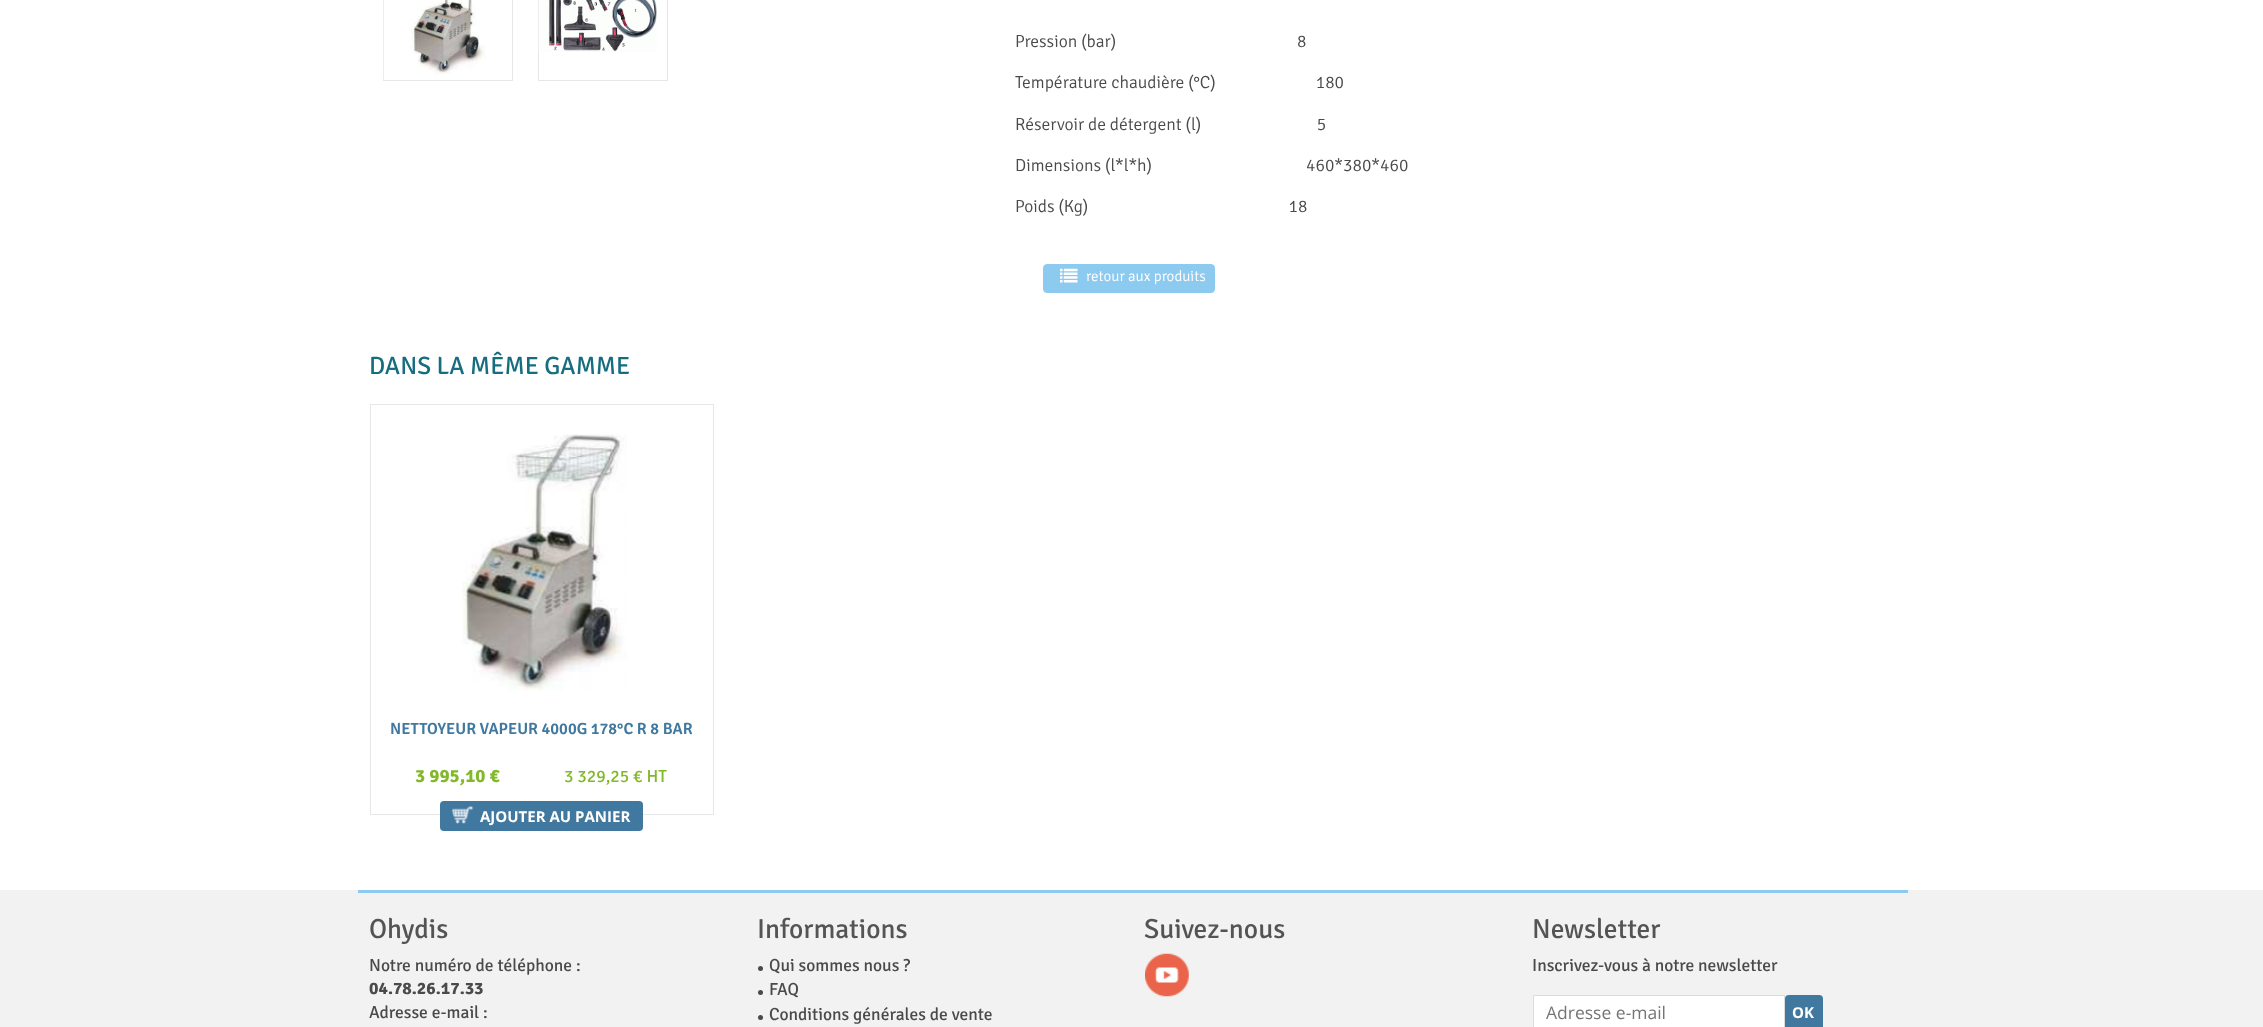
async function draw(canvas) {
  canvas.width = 2263;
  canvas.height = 1027;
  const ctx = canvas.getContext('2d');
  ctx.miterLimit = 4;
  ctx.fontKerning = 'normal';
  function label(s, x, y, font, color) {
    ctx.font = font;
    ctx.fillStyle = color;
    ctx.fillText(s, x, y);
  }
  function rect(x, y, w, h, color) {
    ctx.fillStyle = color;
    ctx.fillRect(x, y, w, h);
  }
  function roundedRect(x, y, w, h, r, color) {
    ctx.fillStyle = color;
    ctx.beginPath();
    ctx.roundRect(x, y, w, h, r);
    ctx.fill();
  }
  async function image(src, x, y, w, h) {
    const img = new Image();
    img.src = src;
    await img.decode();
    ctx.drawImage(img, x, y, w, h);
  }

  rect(0, 0, 2263, 1027, '#f2f2f2');
  rect(0, 0, 2263, 890, '#fff');
  ctx.strokeStyle = '#e7e7e7';
  ctx.strokeRect(383.5, -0.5, 129, 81);
  await image('assets/img1.png', 383, 0, 103, 79);
  ctx.strokeRect(538.5, -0.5, 129, 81);
  await image('assets/img2.png', 538, 0, 119, 52);
  label('Pression (bar)                                               8', 1015, 47, '300 17.5px Signika', '#4a4a4a');
  label('Température chaudière (°C)                          180', 1015, 88, '300 17.5px Signika', '#4a4a4a');
  label('Réservoir de détergent (l)                              5', 1015, 130, '300 17.5px Signika', '#4a4a4a');
  label('Dimensions (l*l*h)                                        460*380*460', 1015, 171, '300 17.5px Signika', '#4a4a4a');
  label('Poids (Kg)                                                    18', 1015, 212, '300 17.5px Signika', '#4a4a4a');
  ctx.fillStyle = '#8ccaef';
  ctx.beginPath();
  ctx.roundRect(1043.5, 264.5, 171, 28, 3.5);
  ctx.fill();
  ctx.strokeStyle = '#8ccaef';
  ctx.stroke();
  await image('assets/img3.png', 1060, 268, 18, 15);
  label('retour aux produits', 1086, 281, '300 15px Signika', '#fff');
  label('DANS LA MÊME GAMME', 369, 374, '25px Signika', '#166d80');
  ctx.strokeStyle = '#e7e7e7';
  ctx.strokeRect(370.5, 404.5, 343, 410);
  await image('assets/img4.png', 461, 434, 166, 257);
  label('NETTOYEUR VAPEUR 4000G 178°C R 8 BAR', 390, 734, '600 16.25px Signika', '#41789f');
  label('3 995,10 €', 415, 782, 'bold 18.75px Signika', '#82b92a');
  label('3 329,25 € HT', 564, 782, '17.5px Signika', '#82b92a');
  roundedRect(440, 801, 203, 30, 4, '#41789f');
  await image('assets/img5.png', 452, 806, 22, 18);
  label('AJOUTER AU PANIER', 480, 822, 'bold 15px Open Sans', '#fff');
  rect(358, 890, 1550, 3, '#8ccaef');
  label('Ohydis', 369, 938, '27.5px Signika', '#545454');
  label('Notre numéro de téléphone :', 369, 971, '17.5px Signika', '#4a4a4a');
  label('04.78.26.17.33', 369, 994, 'bold 17.5px Signika', '#4a4a4a');
  label('Adresse e-mail :', 369, 1018, '17.5px Signika', '#4a4a4a');
  label('Informations', 757, 938, '27.5px Signika', '#545454');
  ctx.fillStyle = '#4a4a4a';
  ctx.beginPath();
  ctx.arc(760.5, 968.5, 2.5, 0, 2 * Math.PI);
  ctx.fill();
  label('Qui sommes nous ?', 769, 971, '17.5px Signika', '#4a4a4a');
  ctx.beginPath();
  ctx.arc(760.5, 992.5, 2.5, 0, 2 * Math.PI);
  ctx.fill();
  label('FAQ', 769, 995, '17.5px Signika', '#4a4a4a');
  ctx.beginPath();
  ctx.arc(760.5, 1017.5, 2.5, 0, 2 * Math.PI);
  ctx.fill();
  label('Conditions générales de vente', 769, 1020, '17.5px Signika', '#4a4a4a');
  label('Suivez-nous', 1144, 938, '27.5px Signika', '#545454');
  await image('assets/img6.png', 1145, 953, 44, 44);
  label('Newsletter', 1532, 938, '27.5px Signika', '#545454');
  label('Inscrivez-vous à notre newsletter', 1532, 971, '17.5px Signika', '#4a4a4a');
  ctx.fillStyle = '#fff';
  ctx.beginPath();
  ctx.rect(1533.5, 995.5, 251, 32);
  ctx.fill();
  ctx.strokeStyle = '#dcdcdc';
  ctx.stroke();
  label('Adresse e-mail', 1546, 1019, '17.5px Open Sans', '#757575');
  roundedRect(1785, 995, 38, 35, 4, '#41789f');
  label('OK', 1792, 1018, 'bold 15px Open Sans', '#fff');
}

draw(document.querySelector('canvas'));
